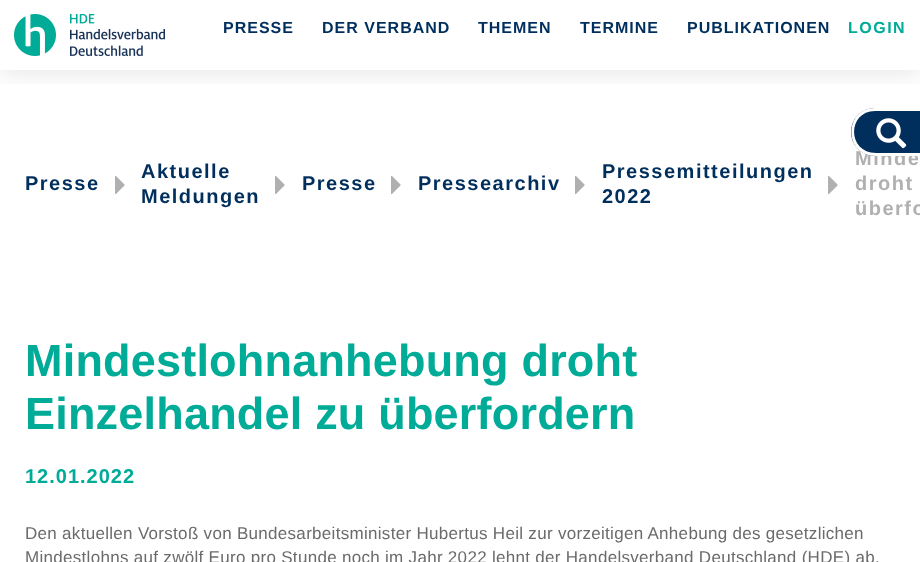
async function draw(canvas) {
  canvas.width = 920;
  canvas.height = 562;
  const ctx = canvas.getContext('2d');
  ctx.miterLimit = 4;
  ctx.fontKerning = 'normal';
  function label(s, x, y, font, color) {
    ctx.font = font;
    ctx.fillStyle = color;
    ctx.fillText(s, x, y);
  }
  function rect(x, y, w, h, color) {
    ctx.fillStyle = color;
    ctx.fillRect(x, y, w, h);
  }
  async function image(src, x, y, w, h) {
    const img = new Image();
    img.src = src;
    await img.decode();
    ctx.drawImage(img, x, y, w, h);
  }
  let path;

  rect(0, 0, 920, 562, '#fff');
  ctx.letterSpacing = '1.5px';
  label('Minde', 855, 165, 'bold 20px Liberation Sans', '#b0b0b0');
  ctx.fillStyle = '#002f5d';
  ctx.beginPath();
  ctx.roundRect(851, 108, 25, 48, [24, 0, 0, 24]);
  ctx.fill();
  ctx.fillStyle = '#fff';
  path = new Path2D('M875 108H876V156C843 156 844 108 875 108ZM875 111H876V153C847 153 847 111 875 111Z');
  ctx.fill(path, 'evenodd');
  rect(876, 111, 44, 42, '#002f5d');
  ctx.save();
  ctx.beginPath();
  ctx.rect(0, 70, 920, 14);
  ctx.clip();
  ctx.fillStyle = '#0000001a';
  ctx.filter = 'blur(12.5px)';
  ctx.beginPath();
  ctx.rect(0, 3, 920, 70);
  ctx.fill();
  ctx.filter = 'none';
  ctx.restore();
  await image('assets/img1.png', 14, 14, 151, 42);
  ctx.letterSpacing = '1px';
  label('PRESSE', 223, 33, 'bold 16px Liberation Sans', '#002f5d');
  label('DER VERBAND', 322, 33, 'bold 16px Liberation Sans', '#002f5d');
  label('THEMEN', 478, 33, 'bold 16px Liberation Sans', '#002f5d');
  label('TERMINE', 580, 33, 'bold 16px Liberation Sans', '#002f5d');
  label('PUBLIKATIONEN', 687, 33, 'bold 16px Liberation Sans', '#002f5d');
  ctx.letterSpacing = '1.5px';
  label('LOGIN', 848, 33, 'bold 16px Liberation Sans', '#00ab97');
  rect(876, 153, 44, 3, '#fff');
  await image('assets/img2.png', 876, 118, 31, 31);
  label('Presse', 25, 190, 'bold 20px Liberation Sans', '#002f5d');
  await image('assets/img3.png', 115, 175, 10, 20);
  label('Aktuelle', 141, 178, 'bold 20px Liberation Sans', '#002f5d');
  label('Meldungen', 141, 203, 'bold 20px Liberation Sans', '#002f5d');
  await image('assets/img3.png', 275, 175, 10, 20);
  label('Presse', 302, 190, 'bold 20px Liberation Sans', '#002f5d');
  await image('assets/img3.png', 391, 175, 10, 20);
  label('Pressearchiv', 418, 190, 'bold 20px Liberation Sans', '#002f5d');
  await image('assets/img3.png', 575, 175, 10, 20);
  label('Pressemitteilungen', 602, 178, 'bold 20px Liberation Sans', '#002f5d');
  label('2022', 602, 203, 'bold 20px Liberation Sans', '#002f5d');
  await image('assets/img3.png', 828, 175, 10, 20);
  label('droht', 855, 190, 'bold 20px Liberation Sans', '#b0b0b0');
  label('überfo', 855, 215, 'bold 20px Liberation Sans', '#b0b0b0');
  ctx.letterSpacing = '0.2px';
  label('Mindestlohnanhebung droht', 25, 376, 'bold 45px Liberation Sans', '#00ab97');
  label('Einzelhandel zu überfordern', 25, 429, 'bold 45px Liberation Sans', '#00ab97');
  ctx.letterSpacing = '1px';
  label('12.01.2022', 25, 483, 'bold 20px Liberation Sans', '#00ab97');
  ctx.letterSpacing = '0.3px';
  label('Den aktuellen Vorstoß von Bundesarbeitsminister Hubertus Heil zur vorzeitigen Anhebung des gesetzlichen', 25, 539, '17px Liberation Sans', '#6b6b6b');
  label('Mindestlohns auf zwölf Euro pro Stunde noch im Jahr 2022 lehnt der Handelsverband Deutschland (HDE) ab.', 25, 563, '17px Liberation Sans', '#6b6b6b');
}

draw(document.querySelector('canvas'));
